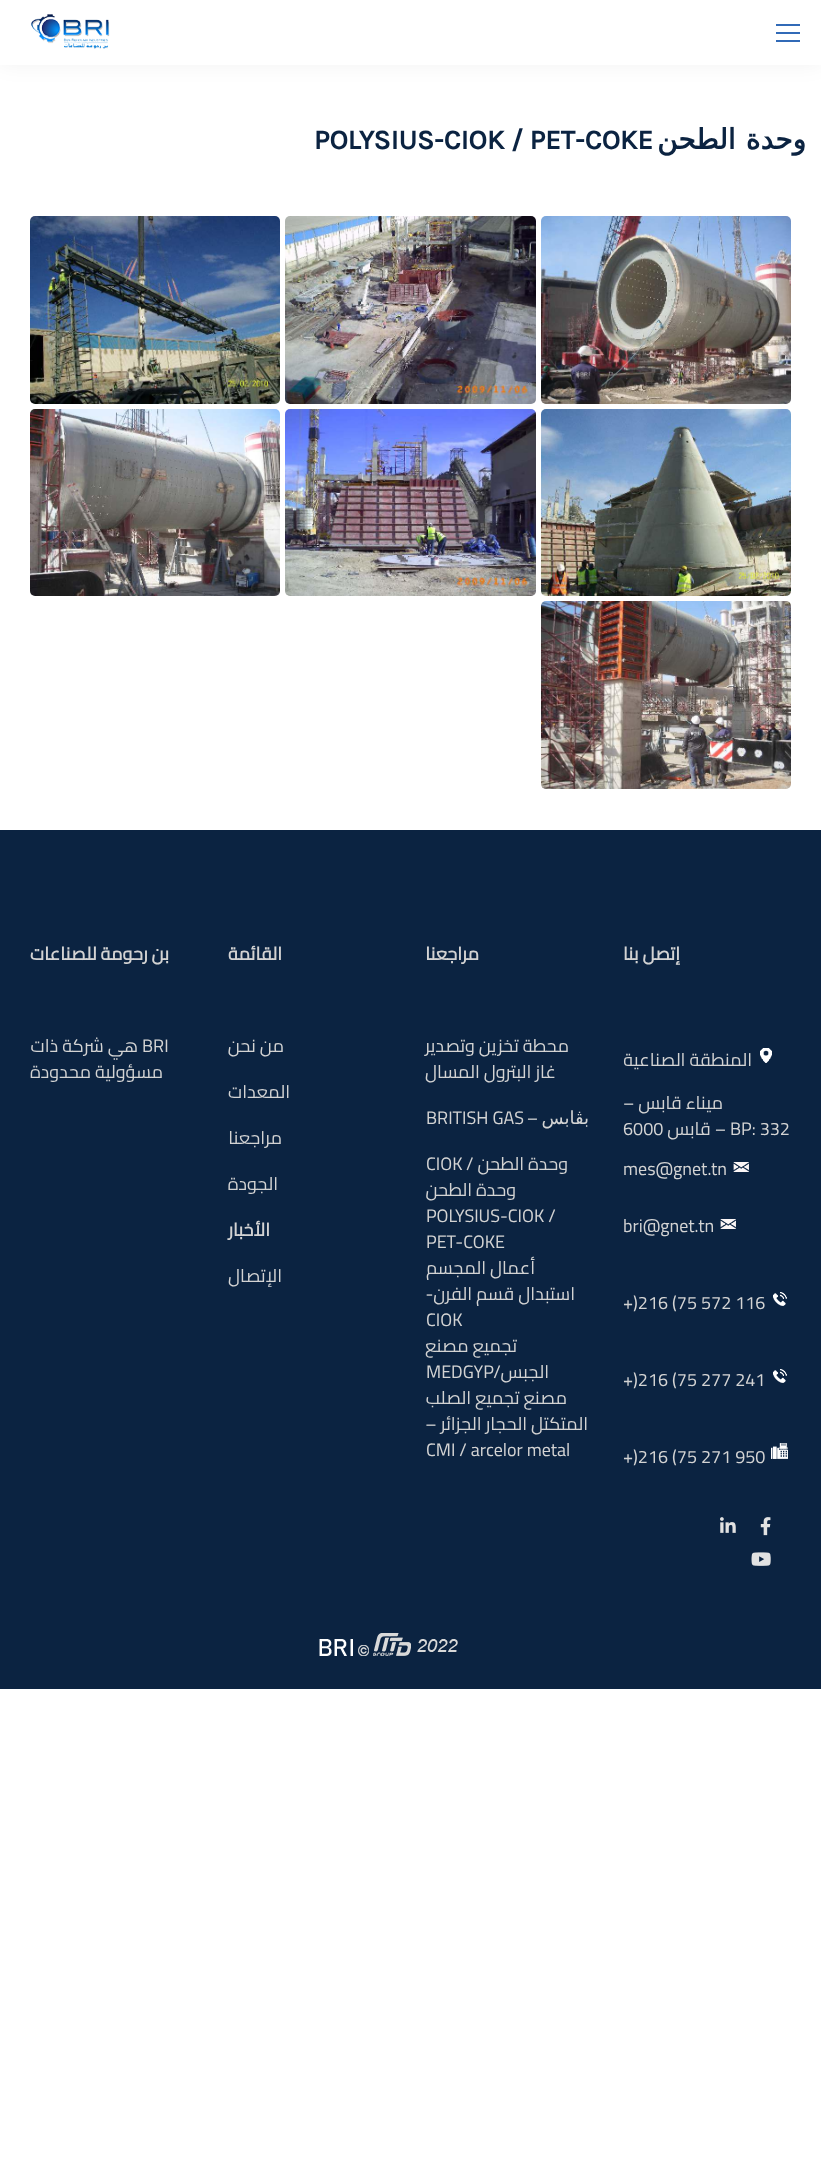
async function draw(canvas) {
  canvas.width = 821;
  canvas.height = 2178;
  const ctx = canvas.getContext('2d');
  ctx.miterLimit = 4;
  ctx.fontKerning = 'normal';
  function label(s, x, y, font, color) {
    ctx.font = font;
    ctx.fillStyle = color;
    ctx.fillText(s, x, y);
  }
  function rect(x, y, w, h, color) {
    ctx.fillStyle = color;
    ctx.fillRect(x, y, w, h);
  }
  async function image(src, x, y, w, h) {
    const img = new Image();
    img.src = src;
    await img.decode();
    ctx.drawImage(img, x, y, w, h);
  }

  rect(0, 0, 821, 2178, '#fff');
  ctx.fillStyle = '#0000000d';
  ctx.filter = 'blur(10px)';
  ctx.beginPath();
  ctx.rect(0, 0, 821, 65);
  ctx.fill();
  ctx.filter = 'none';
  rect(0, 0, 821, 65, '#fff');
  rect(776, 40, 24, 2, '#316ab7');
  rect(776, 24, 24, 2, '#316ab7');
  rect(776, 32, 24, 2, '#316ab7');
  await image('assets/img1.png', 31, 14, 79, 35);
  ctx.letterSpacing = '-0.75px';
  ctx.wordSpacing = '2px';
  ctx.direction = 'rtl';
  label('وحدة الطحن', 806, 149, 'bold 28px DejaVu Sans', '#0b2341');
  ctx.wordSpacing = '0px';
  ctx.direction = 'ltr';
  label('POLYSIUS-CIOK / PET-COKE', 314, 149, 'bold 28px Karla', '#0b2341');
  await image('assets/img2.png', 541, 216, 250, 188);
  await image('assets/img3.png', 285, 216, 251, 188);
  await image('assets/img4.png', 30, 216, 250, 188);
  await image('assets/img5.png', 541, 409, 250, 187);
  await image('assets/img6.png', 285, 409, 251, 187);
  await image('assets/img7.png', 30, 409, 250, 187);
  await image('assets/img8.png', 541, 601, 250, 188);
  rect(0, 830, 821, 859, '#0b2341');
  ctx.letterSpacing = '0px';
  ctx.direction = 'rtl';
  label('إتصل بنا', 680, 960, 'bold 18px Cairo', '#d3d3d3');
  await image('assets/img9.png', 760, 1048, 12, 15);
  label('المنطقة الصناعية', 752, 1066, '18px Cairo', '#d3d3d3');
  label('ميناء قابس –', 723, 1109, '18px Cairo', '#d3d3d3');
  ctx.direction = 'ltr';
  label('BP: 332', 730, 1135, '18px Cairo', '#d3d3d3');
  ctx.direction = 'rtl';
  label('– قابس', 726, 1135, '18px Cairo', '#d3d3d3');
  ctx.direction = 'ltr';
  label('6000', 623, 1135, '18px Cairo', '#d3d3d3');
  await image('assets/img10.png', 733, 1162, 16, 10);
  label('mes@gnet.tn', 623, 1175, '18px Cairo', '#d3d3d3');
  await image('assets/img10.png', 720, 1219, 16, 10);
  label('bri@gnet.tn', 623, 1232, '18px Cairo', '#d3d3d3');
  await image('assets/img11.png', 773, 1292, 14, 14);
  label('+)216 (75 572 116', 623, 1309, '18px Cairo', '#d3d3d3');
  await image('assets/img11.png', 773, 1369, 14, 14);
  label('+)216 (75 277 241', 623, 1386, '18px Cairo', '#d3d3d3');
  await image('assets/img12.png', 771, 1443, 17, 16);
  label('+)216 (75 271 950', 623, 1463, '18px Cairo', '#d3d3d3');
  await image('assets/img13.png', 760, 1517, 11, 19);
  await image('assets/img14.png', 720, 1517, 16, 16);
  await image('assets/img15.png', 751, 1552, 20, 14);
  ctx.direction = 'rtl';
  label('مراجعنا', 479, 960, 'bold 18px Cairo', '#d3d3d3');
  label('محطة تخزين وتصدير', 569, 1052, '18px Cairo', '#d3d3d3');
  label('غاز البترول المسال', 556, 1078, '18px Cairo', '#d3d3d3');
  label('بڨابس', 589, 1124, '18px DejaVu Sans', '#d3d3d3');
  label('–', 538, 1124, '18px Cairo', '#d3d3d3');
  ctx.direction = 'ltr';
  label('BRITISH GAS', 426, 1124, '18px Cairo', '#d3d3d3');
  ctx.direction = 'rtl';
  label('وحدة الطحن /', 568, 1170, '18px Cairo', '#d3d3d3');
  ctx.direction = 'ltr';
  label('CIOK', 426, 1170, '18px Cairo', '#d3d3d3');
  ctx.direction = 'rtl';
  label('وحدة الطحن', 516, 1196, '18px Cairo', '#d3d3d3');
  ctx.direction = 'ltr';
  label('POLYSIUS-CIOK /', 426, 1222, '18px Cairo', '#d3d3d3');
  label('PET-COKE', 426, 1248, '18px Cairo', '#d3d3d3');
  ctx.direction = 'rtl';
  label('أعمال المجسم', 535, 1274, '18px Cairo', '#d3d3d3');
  label('استبدال قسم الفرن-', 575, 1300, '18px Cairo', '#d3d3d3');
  ctx.direction = 'ltr';
  label('CIOK', 426, 1326, '18px Cairo', '#d3d3d3');
  ctx.direction = 'rtl';
  label('تجميع مصنع', 517, 1352, '18px Cairo', '#d3d3d3');
  label('الجبس/', 549, 1378, '18px Cairo', '#d3d3d3');
  ctx.direction = 'ltr';
  label('MEDGYP', 426, 1378, '18px Cairo', '#d3d3d3');
  ctx.direction = 'rtl';
  label('مصنع تجميع الصلب', 567, 1404, '18px Cairo', '#d3d3d3');
  label('المتكتل الحجار الجزائر –', 588, 1430, '18px Cairo', '#d3d3d3');
  ctx.direction = 'ltr';
  label('CMI / arcelor metal', 426, 1456, '18px Cairo', '#d3d3d3');
  ctx.direction = 'rtl';
  label('القائمة', 282, 960, 'bold 18px Cairo', '#d3d3d3');
  label('من نحن', 284, 1052, '18px Cairo', '#d3d3d3');
  label('المعدات', 290, 1098, '18px Cairo', '#d3d3d3');
  label('مراجعنا', 282, 1144, '18px Cairo', '#d3d3d3');
  label('الجودة', 278, 1190, '18px Cairo', '#d3d3d3');
  label('الأخبار', 270, 1236, 'bold 18px Cairo', '#d3d3d3');
  label('الإتصال', 282, 1282, '18px Cairo', '#d3d3d3');
  label('بن رحومة للصناعات', 169, 960, 'bold 18px Cairo', '#d3d3d3');
  ctx.direction = 'ltr';
  label('BRI', 142, 1052, '18px Cairo', '#d3d3d3');
  ctx.direction = 'rtl';
  label('هي شركة ذات', 138, 1052, '18px Cairo', '#d3d3d3');
  label('مسؤولية محدودة', 163, 1078, '18px Cairo', '#d3d3d3');
  await image('assets/img16.png', 319, 1633, 139, 23);
}

draw(document.querySelector('canvas'));
